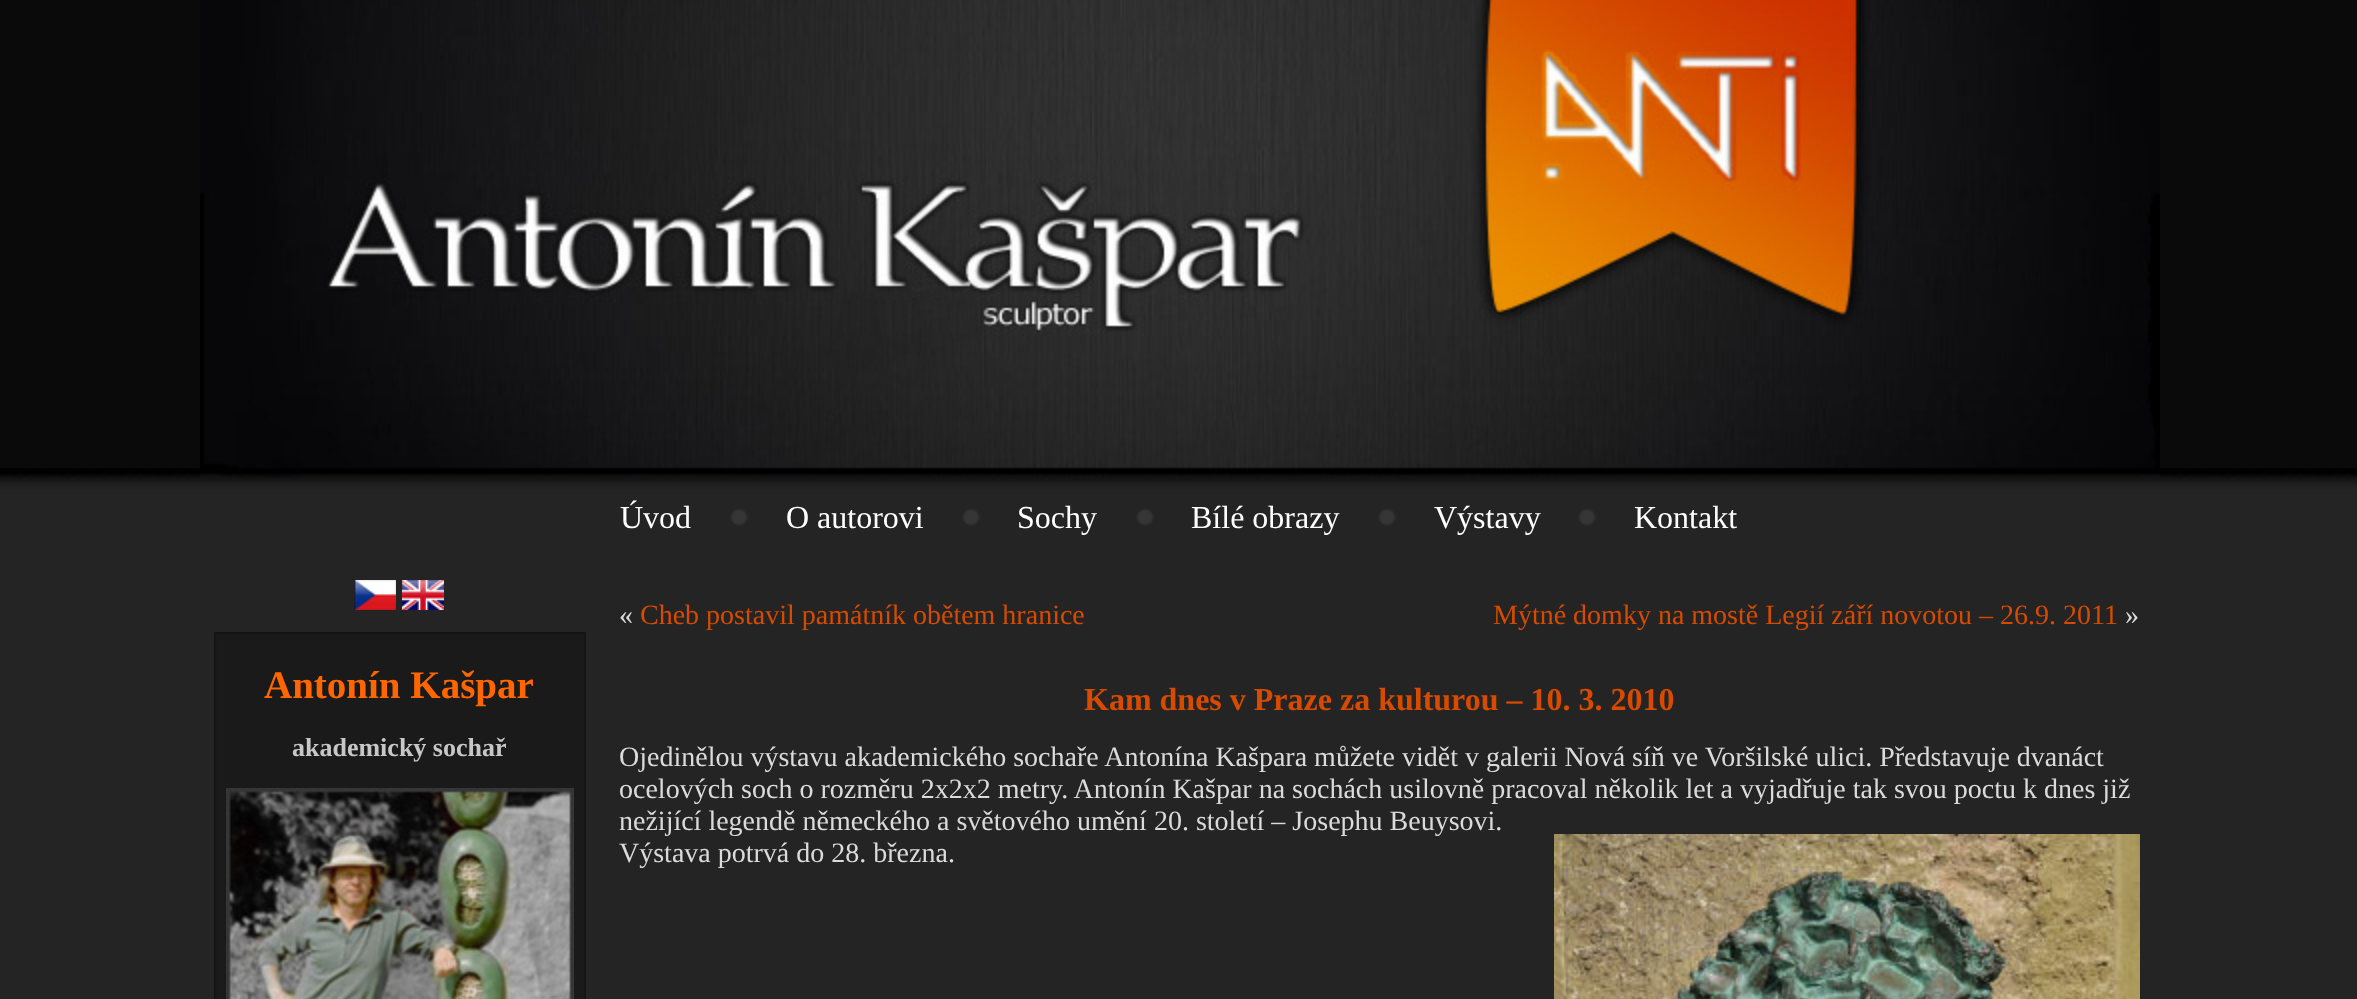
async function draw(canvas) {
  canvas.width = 2357;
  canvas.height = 999;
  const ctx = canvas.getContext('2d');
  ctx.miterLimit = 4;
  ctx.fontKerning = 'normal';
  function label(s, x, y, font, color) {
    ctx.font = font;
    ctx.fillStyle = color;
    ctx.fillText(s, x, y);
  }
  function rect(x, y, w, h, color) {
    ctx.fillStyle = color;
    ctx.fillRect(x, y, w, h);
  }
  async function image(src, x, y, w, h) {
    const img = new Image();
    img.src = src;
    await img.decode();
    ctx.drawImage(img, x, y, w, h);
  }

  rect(0, 0, 2357, 999, '#0a0a0a');
  await image('assets/img1.png', 0, 468, 2357, 531);
  await image('assets/img2.png', 200, 0, 1960, 478);
  label('Úvod', 620, 528, '32px Liberation Serif', '#fff');
  await image('assets/img3.png', 730, 509, 18, 17);
  label('O autorovi', 786, 528, '32px Liberation Serif', '#fff');
  await image('assets/img3.png', 962, 509, 18, 17);
  label('Sochy', 1017, 528, '32px Liberation Serif', '#fff');
  await image('assets/img3.png', 1136, 509, 18, 17);
  label('Bílé obrazy', 1191, 528, '32px Liberation Serif', '#fff');
  await image('assets/img3.png', 1378, 509, 18, 17);
  label('Výstavy', 1434, 528, '32px Liberation Serif', '#fff');
  await image('assets/img3.png', 1578, 509, 18, 17);
  label('Kontakt', 1634, 528, '32px Liberation Serif', '#fff');
  await image('assets/img4.png', 354, 580, 42, 30);
  await image('assets/img5.png', 402, 580, 42, 30);
  await image('assets/img6.png', 214, 632, 370, 2);
  await image('assets/img7.png', 584, 632, 2, 2);
  await image('assets/img8.png', 214, 634, 370, 365);
  rect(584, 634, 2, 365, '#151515');
  label('Antonín Kašpar', 264, 698, 'bold 39px Liberation Serif', '#f60');
  label('akademický sochař', 292, 756, 'bold 26px Liberation Serif', '#c7c7c7');
  await image('assets/img9.png', 226, 788, 348, 211);
  label('«', 619, 624, '28px Liberation Serif', '#dbdbdb');
  label('Cheb postavil památník obětem hranice', 640, 624, '28px Liberation Serif', '#d64b00');
  label('Mýtné domky na mostě Legií září novotou – 26.9. 2011', 1493, 624, '28px Liberation Serif', '#d64b00');
  label('»', 2125, 624, '28px Liberation Serif', '#dbdbdb');
  label('Kam dnes v Praze za kulturou – 10. 3. 2010', 1084, 710, 'bold 32px Liberation Serif', '#d64b00');
  label('Ojedinělou výstavu akademického sochaře Antonína Kašpara můžete vidět v galerii Nová síň ve Voršilské ulici. Představuje dvanáct', 619, 766, '28px Liberation Serif', '#dbdbdb');
  label('ocelových soch o rozměru 2x2x2 metry. Antonín Kašpar na sochách usilovně pracoval několik let a vyjadřuje tak svou poctu k dnes již', 619, 798, '28px Liberation Serif', '#dbdbdb');
  label('nežijící legendě německého a světového umění 20. století – Josephu Beuysovi.', 619, 830, '28px Liberation Serif', '#dbdbdb');
  label('Výstava potrvá do 28. března.', 619, 862, '28px Liberation Serif', '#dbdbdb');
  await image('assets/img10.png', 1554, 834, 586, 165);
}

draw(document.querySelector('canvas'));
